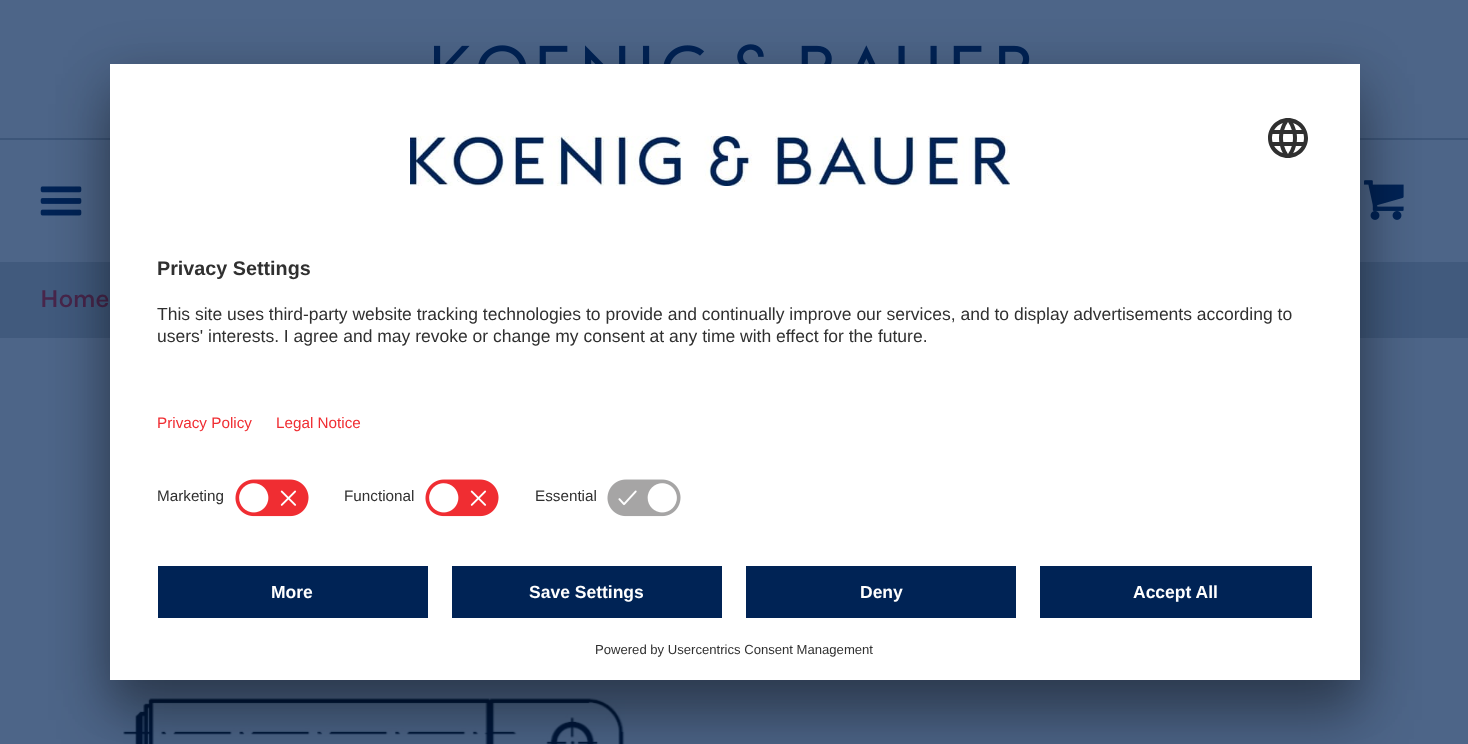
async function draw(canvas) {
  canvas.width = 1468;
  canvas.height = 744;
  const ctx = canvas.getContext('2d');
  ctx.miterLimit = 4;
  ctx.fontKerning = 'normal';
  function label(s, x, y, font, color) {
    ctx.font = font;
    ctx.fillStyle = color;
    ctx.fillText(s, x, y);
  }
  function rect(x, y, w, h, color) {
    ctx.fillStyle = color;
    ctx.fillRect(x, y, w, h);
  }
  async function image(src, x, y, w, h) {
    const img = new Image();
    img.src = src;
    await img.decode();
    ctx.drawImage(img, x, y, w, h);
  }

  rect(0, 0, 1468, 744, '#4d6588');
  rect(0, 138, 1468, 2, '#3d5679');
  await image('assets/img1.png', 434, 44, 596, 20);
  await image('assets/img2.png', 40, 186, 42, 30);
  await image('assets/img3.png', 1364, 180, 40, 40);
  rect(0, 262, 1468, 76, '#415a7d');
  label('Home', 40, 307, '500 24px "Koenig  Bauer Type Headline"', '#48264b');
  await image('assets/img4.png', 123, 698, 502, 46);
  ctx.fillStyle = '#0000004d';
  ctx.filter = 'blur(28px)';
  ctx.beginPath();
  ctx.rect(110, 104, 1250, 616);
  ctx.fill();
  ctx.filter = 'none';
  ctx.fillStyle = '#00000038';
  ctx.filter = 'blur(26px)';
  ctx.beginPath();
  ctx.rect(110, 74, 1250, 616);
  ctx.fill();
  ctx.filter = 'none';
  rect(110, 64, 1250, 616, '#fff');
  await image('assets/img5.png', 410, 136, 600, 50);
  await image('assets/img6.png', 1268, 118, 40, 40);
  label('Privacy Settings', 157, 275, 'bold 19.75px Liberation Sans', '#303030');
  label('This site uses third-party website tracking technologies to provide and continually improve our services, and to display advertisements according to', 157, 320, '17.5px Liberation Sans', '#303030');
  label('users\' interests. I agree and may revoke or change my consent at any time with effect for the future.', 157, 342, '17.5px Liberation Sans', '#303030');
  label('Privacy Policy', 157, 428, '15.25px Liberation Sans', '#f02d32');
  label('Legal Notice', 276, 428, '15.25px Liberation Sans', '#f02d32');
  label('Marketing', 157, 501, '15.25px Liberation Sans', '#303030');
  await image('assets/img7.png', 235, 479, 74, 38);
  label('Functional', 344, 501, '15.25px Liberation Sans', '#303030');
  await image('assets/img7.png', 425, 479, 74, 38);
  label('Essential', 535, 501, '15.25px Liberation Sans', '#303030');
  await image('assets/img8.png', 607, 479, 74, 38);
  rect(158, 566, 270, 52, '#002355');
  label('More', 271, 598, 'bold 17.5px Liberation Sans', '#fff');
  rect(452, 566, 270, 52, '#002355');
  label('Save Settings', 529, 598, 'bold 17.5px Liberation Sans', '#fff');
  rect(746, 566, 270, 52, '#002355');
  label('Deny', 860, 598, 'bold 17.5px Liberation Sans', '#fff');
  rect(1040, 566, 272, 52, '#002355');
  label('Accept All', 1133, 598, 'bold 17.5px Liberation Sans', '#fff');
  label('Powered by Usercentrics Consent Management', 595, 654, '13.1px Liberation Sans', '#303030');
}

draw(document.querySelector('canvas'));
